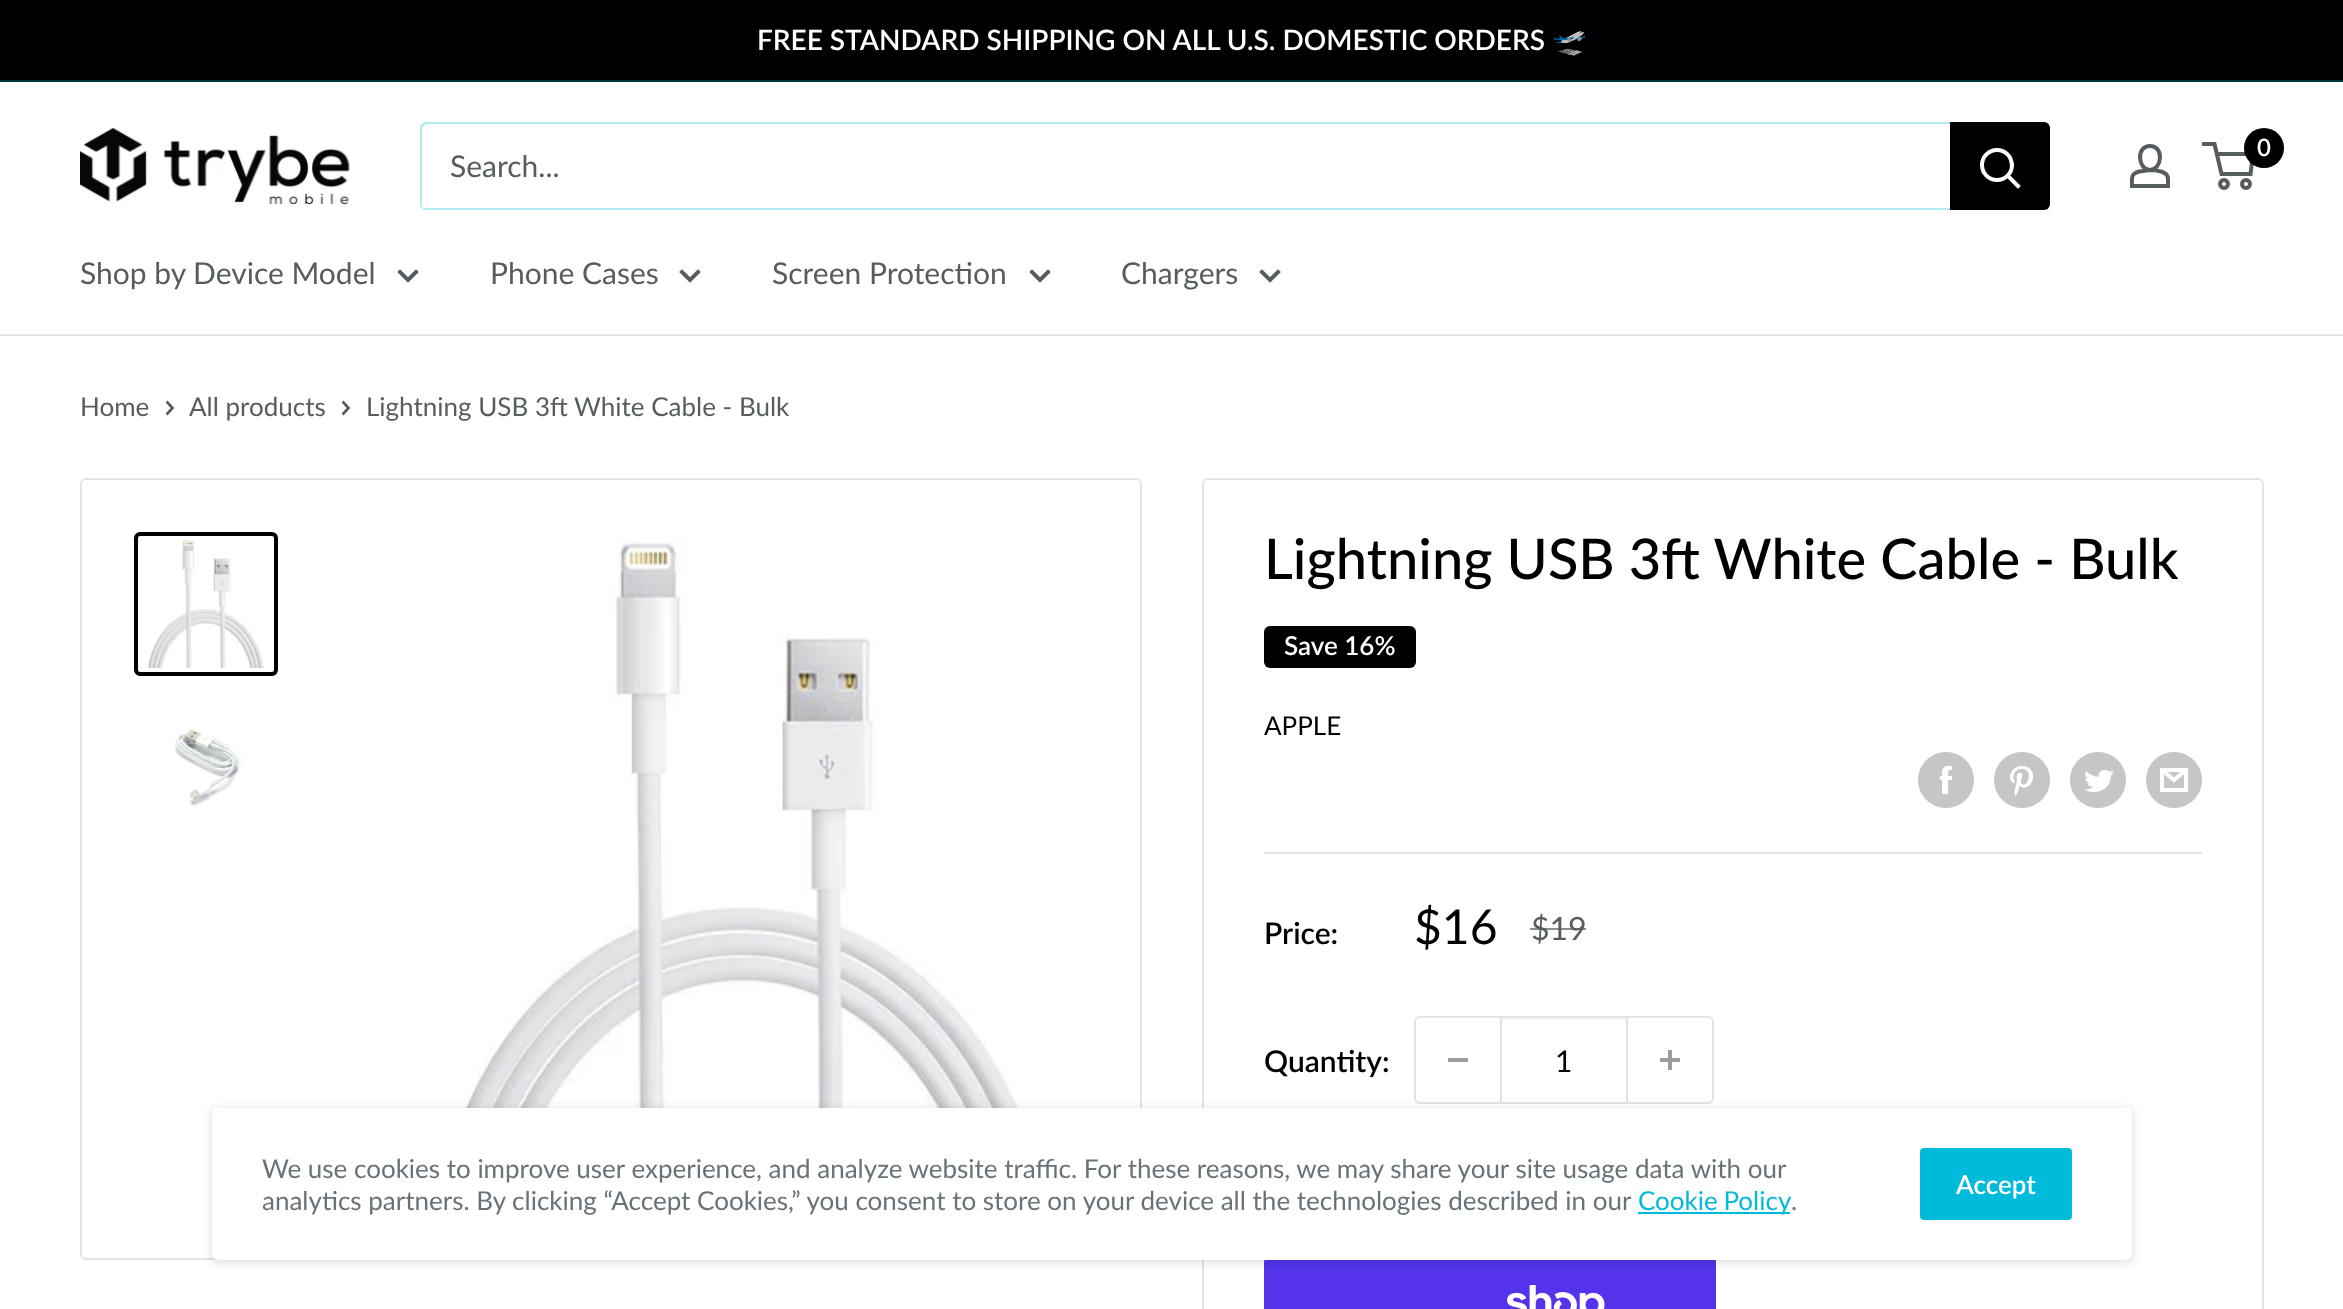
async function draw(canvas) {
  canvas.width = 2343;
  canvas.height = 1309;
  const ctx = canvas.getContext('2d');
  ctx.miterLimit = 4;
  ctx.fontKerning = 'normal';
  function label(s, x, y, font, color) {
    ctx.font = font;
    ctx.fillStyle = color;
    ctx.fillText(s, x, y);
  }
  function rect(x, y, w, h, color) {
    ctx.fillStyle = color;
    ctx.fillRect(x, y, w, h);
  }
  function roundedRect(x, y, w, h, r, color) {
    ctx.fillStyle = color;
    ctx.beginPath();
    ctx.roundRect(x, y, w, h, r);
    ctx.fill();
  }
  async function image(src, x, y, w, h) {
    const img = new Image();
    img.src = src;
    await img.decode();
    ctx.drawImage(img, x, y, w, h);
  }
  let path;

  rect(0, 0, 2343, 1309, '#fff');
  rect(0, 0, 2343, 80, '#000');
  rect(0, 80, 2343, 2, '#003842');
  label('FREE STANDARD SHIPPING ON ALL U.S. DOMESTIC ORDERS', 757, 50, '600 28px Lato', '#fff');
  label('🛫', 1552, 50, 'bold 28px Noto Color Emoji', '#fff');
  await image('assets/img1.png', 80, 128, 270, 77);
  path = new Path2D('M2150 170C2154 170 2157.5 170.5 2161 171.5C2169.5 174 2168 178.5 2168 186H2132C2132 178 2130.5 173.5 2139.5 171.5ZM2150 170C2138 170 2135.5 146 2150 146C2164.5 146 2162 170 2150 170Z');
  ctx.strokeStyle = '#565d61';
  ctx.lineWidth = 4;
  ctx.stroke(path);
  ctx.beginPath();
  ctx.arc(2224, 184, 4, 0, 2 * Math.PI);
  ctx.stroke();
  ctx.beginPath();
  ctx.arc(2246, 184, 4, 0, 2 * Math.PI);
  ctx.stroke();
  path = new Path2D('M2216.5 154H2253L2250.5 174H2221.5L2214.5 144H2202');
  ctx.stroke(path);
  ctx.fillStyle = '#000';
  ctx.beginPath();
  ctx.arc(2264, 148, 20, 0, 2 * Math.PI);
  ctx.fill();
  label('0', 2257, 156, '600 24px Lato', '#fff');
  ctx.fillStyle = '#b3eaf4';
  path = new Path2D('M421 207C422 209 424 210 426 210H2044C2047 210 2050 207 2050 204V128C2050 126 2049 124 2047 123C2048 124 2048 125 2048 126V202C2048 205 2045 208 2042 208H424C423 208 422 208 421 207Z');
  ctx.fill(path);
  ctx.fillStyle = '#00badb4d';
  path = new Path2D('M428 124H2046L2049 125C2048 123 2046 122 2044 122H426C423 122 420 125 420 128V204C420 206 421 208 423 209C422 208 422 207 422 206V130C422 127 425 124 428 124Z');
  ctx.fill(path);
  label('Search...', 450, 177, '30px Lato', '#565d61');
  ctx.fillStyle = '#000';
  ctx.beginPath();
  ctx.roundRect(1950, 122, 100, 88, [0, 6, 6, 0]);
  ctx.fill();
  path = new Path2D('M2018 186L2008 176');
  ctx.strokeStyle = '#fff';
  ctx.lineCap = 'square';
  ctx.stroke(path);
  ctx.beginPath();
  ctx.arc(1997, 165, 15, 0, 2 * Math.PI);
  ctx.stroke();
  rect(0, 334, 2343, 2, '#e1e3e4');
  label('Shop by Device Model', 80, 284, '30px Lato', '#565d61');
  path = new Path2D('M416 272L408 280L400 272');
  ctx.strokeStyle = '#565d61';
  ctx.stroke(path);
  label('Phone Cases', 490, 284, '30px Lato', '#565d61');
  path = new Path2D('M698 272L690 280L682 272');
  ctx.stroke(path);
  label('Screen Protection', 772, 284, '30px Lato', '#565d61');
  path = new Path2D('M1048 272L1040 280L1032 272');
  ctx.stroke(path);
  label('Chargers', 1121, 284, '30px Lato', '#565d61');
  path = new Path2D('M1278 272L1270 280L1262 272');
  ctx.stroke(path);
  label('Home', 80, 416, '26px Lato', '#565d61');
  path = new Path2D('M167.5 402.5L172.5 408L167.5 413.5');
  ctx.lineWidth = 2.7;
  ctx.stroke(path);
  label('All products', 189, 416, '26px Lato', '#565d61');
  path = new Path2D('M343.5 402.5L348.5 408L343.5 413.5');
  ctx.stroke(path);
  label('Lightning USB 3ft White Cable - Bulk', 366, 416, '26px Lato', '#565d61');
  ctx.beginPath();
  ctx.roundRect(81, 479, 1060, 780, 5);
  ctx.strokeStyle = '#e1e3e4';
  ctx.lineWidth = 2;
  ctx.stroke();
  ctx.beginPath();
  ctx.roundRect(136, 534, 140, 140, 4);
  ctx.strokeStyle = '#000';
  ctx.lineWidth = 4;
  ctx.stroke();
  await image('assets/img2.png', 147, 540, 117, 128);
  await image('assets/img3.png', 174, 729, 68, 78);
  await image('assets/img4.png', 436, 540, 612, 568);
  ctx.beginPath();
  ctx.roundRect(1203, 479, 1060, 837, 5);
  ctx.strokeStyle = '#e1e3e4';
  ctx.lineWidth = 2;
  ctx.stroke();
  label('Lightning USB 3ft White Cable - Bulk', 1264, 579, '500 56px Lato', '#000');
  roundedRect(1264, 626, 152, 42, 6, '#000');
  label('Save 16%', 1284, 655, '600 26px Lato', '#fff');
  label('APPLE', 1264, 735, '26px Lato', '#000');
  await image('assets/img5.png', 1918, 752, 56, 56);
  await image('assets/img6.png', 1994, 752, 56, 56);
  await image('assets/img7.png', 2070, 752, 56, 56);
  await image('assets/img8.png', 2146, 752, 56, 56);
  rect(1264, 852, 938, 2, '#e1e3e4');
  label('Price:', 1264, 944, '600 30px Lato', '#000');
  label('$16', 1414, 944, '48px Lato', '#000');
  label('$19', 1531, 940, '32px Lato', '#565d61');
  rect(1530, 928, 56, 2, '#565d61b3');
  label('Quantity:', 1264, 1072, '600 30px Lato', '#000');
  ctx.beginPath();
  ctx.roundRect(1415, 1017, 298, 86, 5);
  ctx.stroke();
  rect(1448, 1058, 20, 4, '#9a9ea0');
  rect(1502, 1018, 124, 2, '#f3f4f4');
  rect(1626, 1018, 2, 84, '#e1e3e4');
  rect(1500, 1018, 2, 84, '#e1e3e4');
  label('1', 1555, 1072, '30px Lato', '#000');
  await image('assets/img9.png', 1660, 1050, 20, 20);
  roundedRect(1264, 1256, 452, 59, 6, '#5433eb');
  await image('assets/img10.png', 1507, 1285, 98, 24);
  ctx.fillStyle = '#0000001a';
  ctx.filter = 'blur(4px)';
  ctx.beginPath();
  ctx.roundRect(210, 1108, 1924, 156, 8);
  ctx.fill();
  ctx.filter = 'none';
  roundedRect(212, 1108, 1920, 152, 6, '#fff');
  label('We use cookies to improve user experience, and analyze website traffic. For these reasons, we may share your site usage data with our', 262, 1178, '26px Lato', '#677279');
  label('analytics partners. By clicking “Accept Cookies,” you consent to store on your device all the technologies described in our', 262, 1210, '26px Lato', '#677279');
  rect(1638, 1212, 152, 2, '#00badb');
  ctx.wordSpacing = '-1px';
  label('Cookie Policy', 1638, 1210, '26px Lato', '#00badb');
  ctx.wordSpacing = '0px';
  label('.', 1791, 1210, '26px Lato', '#677279');
  roundedRect(1920, 1148, 152, 72, 4, '#00badb');
  label('Accept', 1956, 1194, '600 26px Lato', '#fff');
}

draw(document.querySelector('canvas'));
